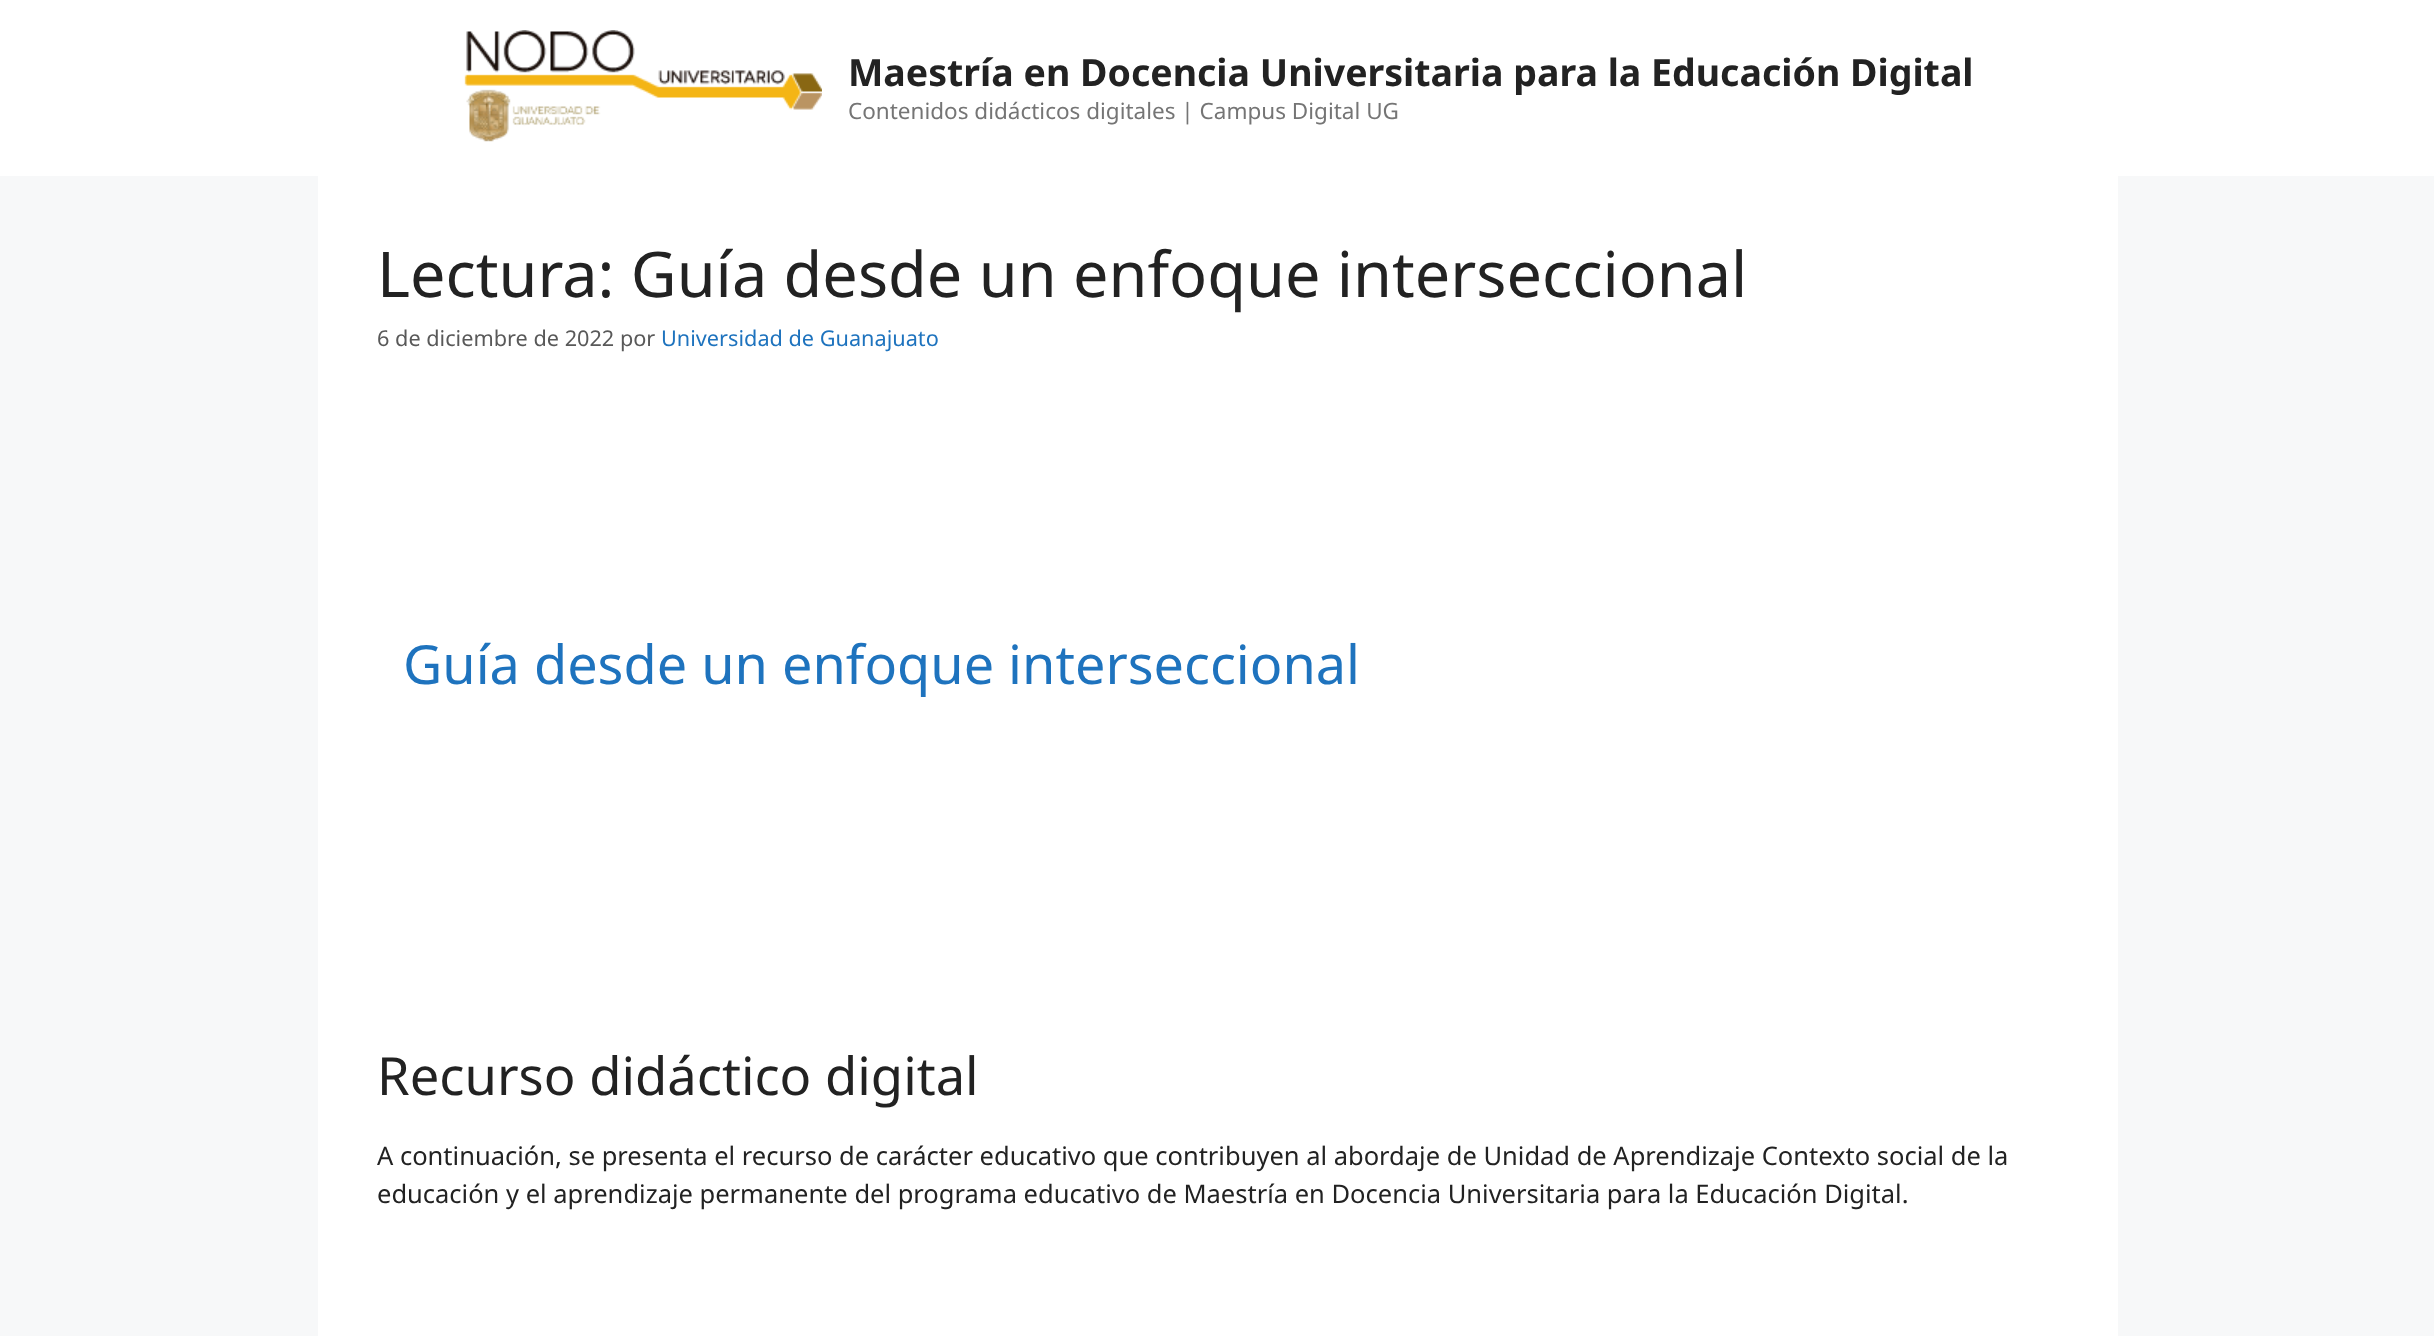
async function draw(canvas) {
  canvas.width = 2434;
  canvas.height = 1336;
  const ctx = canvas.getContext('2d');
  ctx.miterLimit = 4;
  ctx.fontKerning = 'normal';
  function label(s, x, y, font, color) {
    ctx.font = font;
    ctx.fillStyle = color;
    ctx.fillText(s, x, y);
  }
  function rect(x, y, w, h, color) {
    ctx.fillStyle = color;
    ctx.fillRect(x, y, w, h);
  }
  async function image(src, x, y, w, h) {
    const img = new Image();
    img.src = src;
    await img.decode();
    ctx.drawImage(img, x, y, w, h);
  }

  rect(0, 0, 2434, 1336, '#f7f8f9');
  rect(0, 0, 2434, 176, '#fff');
  await image('assets/img1.png', 464, 30, 358, 112);
  label('Maestría en Docencia Universitaria para la Educación Digital', 848, 86, 'bold 37.5px Noto Sans', '#222');
  label('Contenidos didácticos digitales | Campus Digital UG', 848, 119, '22.5px Noto Sans', '#757575');
  rect(318, 176, 1800, 1160, '#fff');
  label('Lectura: Guía desde un enfoque interseccional', 377, 297, '63px Noto Sans', '#222');
  label('6 de diciembre de 2022 por', 377, 346, '21.7px Noto Sans', '#595959');
  label('Universidad de Guanajuato', 661, 346, '21.7px Noto Sans', '#1e73be');
  label('Guía desde un enfoque interseccional', 403, 684, '54px Noto Sans', '#1e73be');
  label('Recurso didáctico digital', 377, 1095, '52.5px Noto Sans', '#222');
  label('A continuación, se presenta el recurso de carácter educativo que contribuyen al abordaje de Unidad de Aprendizaje Contexto social de la', 377, 1165, '25.5px Noto Sans', '#222');
  label('educación y el aprendizaje permanente del programa educativo de Maestría en Docencia Universitaria para la Educación Digital.', 377, 1203, '25.5px Noto Sans', '#222');
}

draw(document.querySelector('canvas'));
